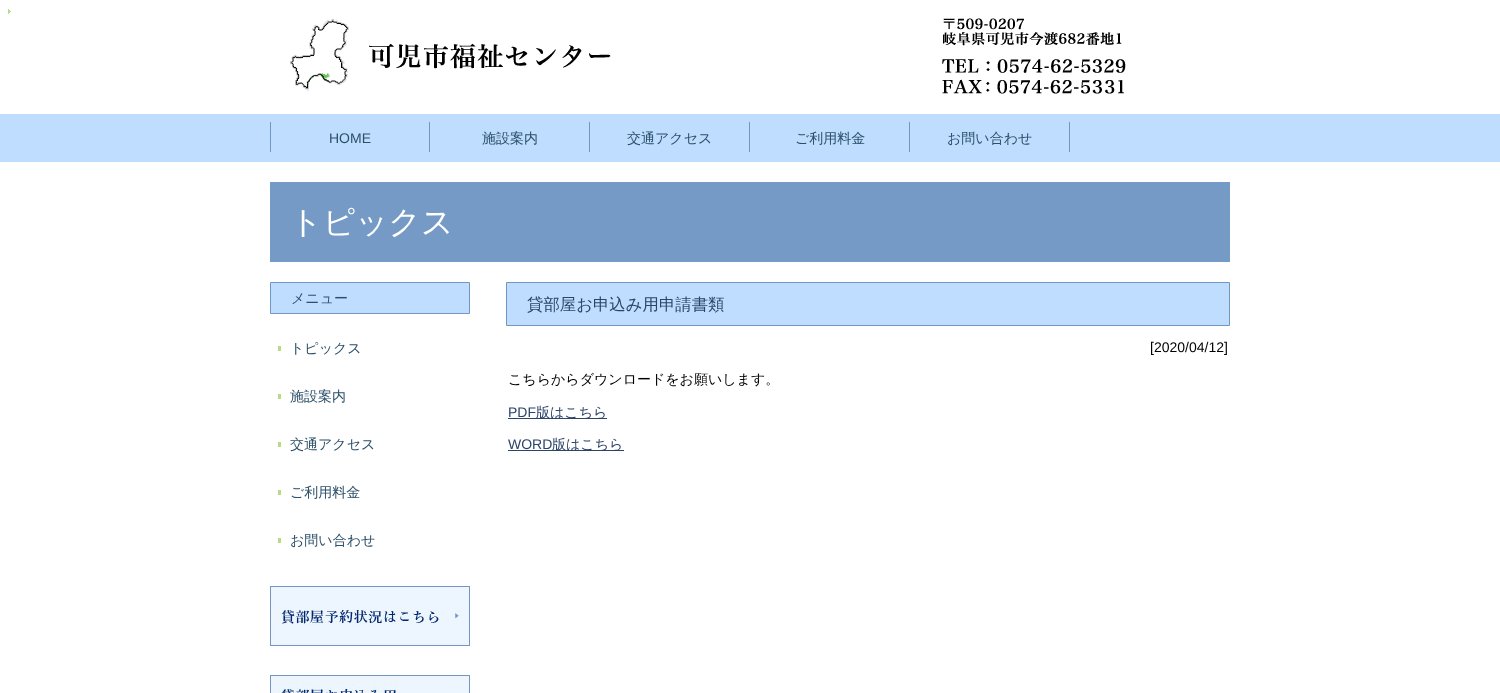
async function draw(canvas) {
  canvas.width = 1500;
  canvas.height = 693;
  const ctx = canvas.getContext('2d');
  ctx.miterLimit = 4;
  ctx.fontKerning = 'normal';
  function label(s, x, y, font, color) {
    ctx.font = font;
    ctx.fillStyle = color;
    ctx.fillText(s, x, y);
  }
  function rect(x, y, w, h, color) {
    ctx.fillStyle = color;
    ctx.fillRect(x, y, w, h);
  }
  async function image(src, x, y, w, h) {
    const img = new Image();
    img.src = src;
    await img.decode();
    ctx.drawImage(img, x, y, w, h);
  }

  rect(0, 0, 1500, 693, '#fff');
  await image('assets/img1.png', 290, 19, 321, 72);
  await image('assets/img2.png', 942, 18, 184, 76);
  rect(0, 114, 1500, 48, '#bfddff');
  rect(270, 122, 1, 30, '#7297c0');
  label('HOME', 329, 143, '14px Liberation Sans', '#2c5069');
  rect(429, 122, 1, 30, '#7297c0');
  label('施設案内', 482, 143, '500 14px WenQuanYi Zen Hei', '#2c5069');
  rect(589, 122, 1, 30, '#7297c0');
  label('交通アクセス', 627, 143, '500 14px WenQuanYi Zen Hei', '#2c5069');
  rect(749, 122, 1, 30, '#7297c0');
  label('ご利用料金', 795, 143, '500 14px WenQuanYi Zen Hei', '#2c5069');
  rect(909, 122, 1, 30, '#7297c0');
  label('お問い合わせ', 947, 143, '500 14px WenQuanYi Zen Hei', '#2c5069');
  rect(1069, 122, 1, 30, '#7297c0');
  rect(270, 182, 960, 80, '#749ac5');
  label('トピックス', 290, 233, '500 32px WenQuanYi Zen Hei', '#fff');
  rect(8, 9, 1, 5, '#b6dc88');
  await image('assets/img3.png', 270, 586, 200, 60);
  await image('assets/img4.png', 9, 9, 2, 5);
  await image('assets/img5.png', 270, 675, 200, 18);
  ctx.fillStyle = '#bfddff';
  ctx.beginPath();
  ctx.rect(270.5, 282.5, 199, 31);
  ctx.fill();
  ctx.strokeStyle = '#7297c0';
  ctx.stroke();
  label('メニュー', 291, 303, '500 14px WenQuanYi Zen Hei', '#2c5069');
  rect(278, 346, 3, 5, '#b6dc88');
  label('トピックス', 290, 353, '500 14px WenQuanYi Zen Hei', '#2c5069');
  rect(278, 394, 3, 5, '#b6dc88');
  label('施設案内', 290, 401, '500 14px WenQuanYi Zen Hei', '#2c5069');
  rect(278, 442, 3, 5, '#b6dc88');
  label('交通アクセス', 290, 449, '500 14px WenQuanYi Zen Hei', '#2c5069');
  rect(278, 490, 3, 5, '#b6dc88');
  label('ご利用料金', 290, 497, '500 14px WenQuanYi Zen Hei', '#2c5069');
  rect(278, 538, 3, 5, '#b6dc88');
  label('お問い合わせ', 290, 545, '500 14px WenQuanYi Zen Hei', '#2c5069');
  ctx.fillStyle = '#bfddff';
  ctx.beginPath();
  ctx.rect(506.5, 282.5, 723, 43);
  ctx.fill();
  ctx.stroke();
  label('貸部屋お申込み用申請書類', 527, 310, '500 16.4px WenQuanYi Zen Hei', '#2c4469');
  label('[2020/04/12]', 1150, 352, '14px Liberation Sans', '#000');
  label('こちらからダウンロードをお願いします。', 508, 384, '500 14px WenQuanYi Zen Hei', '#000');
  label('PDF', 508, 417, '14px Liberation Sans', '#2c4469');
  rect(508, 418, 99, 1, '#2c4469');
  label('版はこちら', 536, 417, '500 14px WenQuanYi Zen Hei', '#2c4469');
  label('WORD', 508, 449, '14px Liberation Sans', '#2c4469');
  rect(508, 450, 116, 1, '#2c4469');
  label('版はこちら', 552, 449, '500 14px WenQuanYi Zen Hei', '#2c4469');
}

draw(document.querySelector('canvas'));
